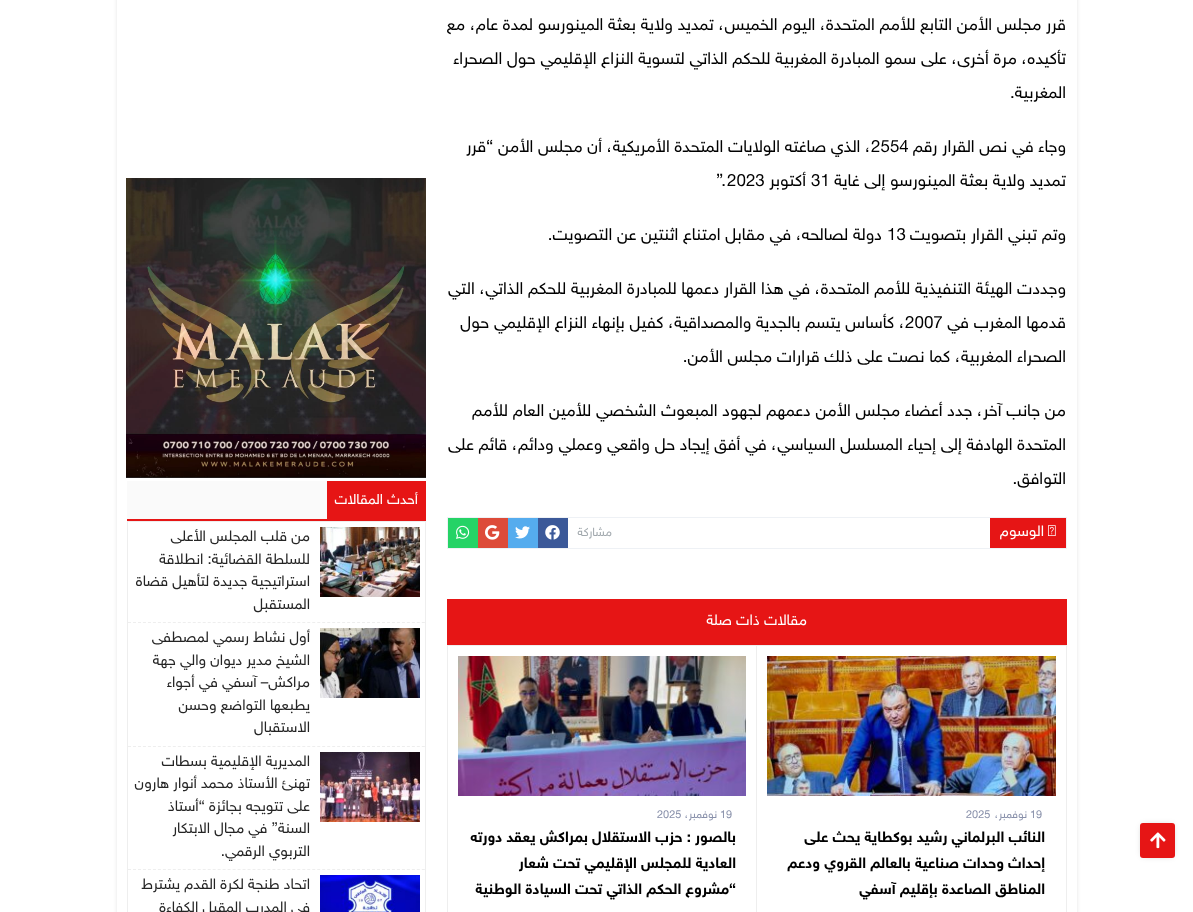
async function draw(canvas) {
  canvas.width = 1193;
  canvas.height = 912;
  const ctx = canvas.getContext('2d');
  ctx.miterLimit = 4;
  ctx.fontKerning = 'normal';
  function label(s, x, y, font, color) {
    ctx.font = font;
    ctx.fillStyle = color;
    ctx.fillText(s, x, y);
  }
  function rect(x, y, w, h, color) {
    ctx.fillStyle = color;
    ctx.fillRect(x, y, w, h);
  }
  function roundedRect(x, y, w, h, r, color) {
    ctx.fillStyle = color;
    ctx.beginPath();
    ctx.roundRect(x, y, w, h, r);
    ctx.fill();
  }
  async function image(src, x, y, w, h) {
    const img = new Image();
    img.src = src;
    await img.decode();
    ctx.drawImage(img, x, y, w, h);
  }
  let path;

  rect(0, 0, 1193, 912, '#fff');
  ctx.fillStyle = '#0000004d';
  ctx.filter = 'blur(3.5px)';
  ctx.beginPath();
  ctx.rect(1143, 826, 29, 29);
  ctx.fill();
  ctx.filter = 'none';
  roundedRect(1140, 823, 35, 35, 3, '#e61515');
  await image('assets/img1.png', 1150, 832, 16, 17);
  ctx.save();
  path = new Path2D('M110 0H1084V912H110ZM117-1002H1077V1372H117Z');
  ctx.clip(path, 'evenodd');
  ctx.fillStyle = '#0000001a';
  ctx.filter = 'blur(2px)';
  ctx.beginPath();
  ctx.rect(117, -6, 960, 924);
  ctx.fill();
  ctx.filter = 'none';
  ctx.restore();
  ctx.direction = 'rtl';
  label('قرر مجلس الأمن التابع للأمم المتحدة، اليوم الخميس، تمديد ولاية بعثة المينورسو لمدة عام، مع', 1066, 30, '17px "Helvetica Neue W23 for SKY"', '#000');
  label('تأكيده، مرة أخرى، على سمو المبادرة المغربية للحكم الذاتي لتسوية النزاع الإقليمي حول الصحراء', 1066, 64, '17px "Helvetica Neue W23 for SKY"', '#000');
  label('المغربية.', 1066, 98, '17px "Helvetica Neue W23 for SKY"', '#000');
  label('وجاء في نص القرار رقم', 1066, 152, '17px "Helvetica Neue W23 for SKY"', '#000');
  ctx.direction = 'ltr';
  label('2554', 871, 152, '17px "Helvetica Neue W23 for SKY"', '#000');
  ctx.direction = 'rtl';
  label('، الذي صاغته الولايات المتحدة الأمريكية، أن مجلس الأمن “قرر', 871, 152, '17px "Helvetica Neue W23 for SKY"', '#000');
  label('تمديد ولاية بعثة المينورسو إلى غاية', 1066, 186, '17px "Helvetica Neue W23 for SKY"', '#000');
  ctx.direction = 'ltr';
  label('31', 811, 186, '17px "Helvetica Neue W23 for SKY"', '#000');
  ctx.direction = 'rtl';
  label('أكتوبر', 806, 186, '17px "Helvetica Neue W23 for SKY"', '#000');
  ctx.direction = 'ltr';
  label('2023', 727, 186, '17px "Helvetica Neue W23 for SKY"', '#000');
  label('”.', 716, 186, '17px "Helvetica Neue W23 for SKY"', '#000');
  ctx.direction = 'rtl';
  label('وتم تبني القرار بتصويت', 1066, 240, '17px "Helvetica Neue W23 for SKY"', '#000');
  ctx.direction = 'ltr';
  label('13', 887, 240, '17px "Helvetica Neue W23 for SKY"', '#000');
  ctx.direction = 'rtl';
  label('دولة لصالحه، في مقابل امتناع اثنتين عن التصويت.', 882, 240, '17px "Helvetica Neue W23 for SKY"', '#000');
  label('وجددت الهيئة التنفيذية للأمم المتحدة، في هذا القرار دعمها للمبادرة المغربية للحكم الذاتي، التي', 1066, 294, '17px "Helvetica Neue W23 for SKY"', '#000');
  label('قدمها المغرب في', 1066, 328, '17px "Helvetica Neue W23 for SKY"', '#000');
  ctx.direction = 'ltr';
  label('2007', 905, 328, '17px "Helvetica Neue W23 for SKY"', '#000');
  ctx.direction = 'rtl';
  label('، كأساس يتسم بالجدية والمصداقية، كفيل بإنهاء النزاع الإقليمي حول', 905, 328, '17px "Helvetica Neue W23 for SKY"', '#000');
  label('الصحراء المغربية، كما نصت على ذلك قرارات مجلس الأمن.', 1066, 362, '17px "Helvetica Neue W23 for SKY"', '#000');
  label('من جانب آخر، جدد أعضاء مجلس الأمن دعمهم لجهود المبعوث الشخصي للأمين العام للأمم', 1066, 416, '17px "Helvetica Neue W23 for SKY"', '#000');
  label('المتحدة الهادفة إلى إحياء المسلسل السياسي، في أفق إيجاد حل واقعي وعملي ودائم، قائم على', 1066, 450, '17px "Helvetica Neue W23 for SKY"', '#000');
  label('التوافق.', 1066, 484, '17px "Helvetica Neue W23 for SKY"', '#000');
  ctx.strokeStyle = '#eef1f5';
  ctx.strokeRect(447.5, 517.5, 619, 31);
  rect(990, 518, 76, 30, '#e61515');
  await image('assets/img2.png', 1048, 525, 8, 11);
  label('الوسوم', 1044, 536, '15px "Helvetica Neue W23 for SKY"', '#fff');
  label('مشاركة', 612, 536, '12px "Helvetica Neue W23 for SKY"', '#a2a9ae');
  rect(538, 518, 30, 30, '#3b5999');
  await image('assets/img3.png', 545, 525, 15, 15);
  rect(508, 518, 30, 30, '#55acee');
  await image('assets/img4.png', 515, 526, 15, 13);
  rect(478, 518, 30, 30, '#dd4b39');
  await image('assets/img5.png', 485, 525, 15, 15);
  rect(448, 518, 30, 30, '#25d366');
  await image('assets/img6.png', 456, 525, 14, 14);
  rect(447, 599, 620, 46, '#e61515');
  label('مقالات ذات صلة', 807, 625, '15px "Helvetica Neue W23 for SKY"', '#fff');
  rect(447, 645, 620, 1, '#eee');
  rect(1066, 645, 1, 267, '#eee');
  rect(756, 646, 1, 266, '#eee');
  await image('assets/img7.png', 767, 656, 289, 140);
  ctx.direction = 'ltr';
  label('19', 1030, 818, '11px "Helvetica Neue W23 for SKY"', '#8890aa');
  ctx.direction = 'rtl';
  label('نوفمبر،', 1027, 818, '11px "Helvetica Neue W23 for SKY"', '#8890aa');
  ctx.direction = 'ltr';
  label('2025', 966, 818, '11px "Helvetica Neue W23 for SKY"', '#8890aa');
  ctx.direction = 'rtl';
  label('النائب البرلماني رشيد بوكطاية يحث على', 1045, 842, 'bold 15px "Helvetica Neue W23 for SKY"', '#000');
  label('إحداث وحدات صناعية بالعالم القروي ودعم', 1045, 868, 'bold 15px "Helvetica Neue W23 for SKY"', '#000');
  label('المناطق الصاعدة بإقليم آسفي', 1045, 894, 'bold 15px "Helvetica Neue W23 for SKY"', '#000');
  rect(447, 646, 1, 266, '#eee');
  await image('assets/img8.png', 458, 656, 288, 140);
  ctx.direction = 'ltr';
  label('19', 720, 818, '11px "Helvetica Neue W23 for SKY"', '#8890aa');
  ctx.direction = 'rtl';
  label('نوفمبر،', 717, 818, '11px "Helvetica Neue W23 for SKY"', '#8890aa');
  ctx.direction = 'ltr';
  label('2025', 657, 818, '11px "Helvetica Neue W23 for SKY"', '#8890aa');
  ctx.direction = 'rtl';
  label('بالصور : حزب الاستقلال بمراكش يعقد دورته', 736, 842, 'bold 15px "Helvetica Neue W23 for SKY"', '#000');
  label('العادية للمجلس الإقليمي تحت شعار', 736, 868, 'bold 15px "Helvetica Neue W23 for SKY"', '#000');
  label('“مشروع الحكم الذاتي تحت السيادة الوطنية', 736, 894, 'bold 15px "Helvetica Neue W23 for SKY"', '#000');
  await image('assets/img9.png', 126, 178, 300, 300);
  rect(127, 481, 200, 38, '#fafafa');
  rect(127, 519, 200, 2, '#e61515');
  rect(327, 481, 99, 40, '#e61515');
  label('أحدث المقالات', 418, 504, '14.5px "Helvetica Neue W23 for SKY"', '#fff');
  ctx.strokeStyle = '#eee';
  ctx.strokeRect(127.5, 521.5, 298, 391);
  path = new Path2D('M128 622.5H425');
  ctx.setLineDash([3, 1.98]);
  ctx.stroke(path);
  await image('assets/img10.png', 320, 527, 100, 70);
  label('من قلب المجلس الأعلى', 310, 541, '15px "Helvetica Neue W23 for SKY"', '#252525');
  label('للسلطة القضائية: انطلاقة', 310, 564, '15px "Helvetica Neue W23 for SKY"', '#252525');
  label('استراتيجية جديدة لتأهيل قضاة', 310, 586, '15px "Helvetica Neue W23 for SKY"', '#252525');
  label('المستقبل', 310, 609, '15px "Helvetica Neue W23 for SKY"', '#252525');
  path = new Path2D('M128 746.5H425');
  ctx.stroke(path);
  await image('assets/img11.png', 320, 628, 100, 70);
  label('أول نشاط رسمي لمصطفى', 310, 642, '15px "Helvetica Neue W23 for SKY"', '#252525');
  label('الشيخ مدير ديوان والي جهة', 310, 665, '15px "Helvetica Neue W23 for SKY"', '#252525');
  label('مراكش– آسفي في أجواء', 310, 687, '15px "Helvetica Neue W23 for SKY"', '#252525');
  label('يطبعها التواضع وحسن', 310, 710, '15px "Helvetica Neue W23 for SKY"', '#252525');
  label('الاستقبال', 310, 732, '15px "Helvetica Neue W23 for SKY"', '#252525');
  path = new Path2D('M128 869.5H425');
  ctx.stroke(path);
  await image('assets/img12.png', 320, 752, 100, 70);
  label('المديرية الإقليمية بسطات', 310, 766, '15px "Helvetica Neue W23 for SKY"', '#252525');
  label('تهنئ الأستاذ محمد أنوار هارون', 310, 788, '15px "Helvetica Neue W23 for SKY"', '#252525');
  label('على تتويجه بجائزة “أستاذ', 310, 811, '15px "Helvetica Neue W23 for SKY"', '#252525');
  label('السنة” في مجال الابتكار', 310, 833, '15px "Helvetica Neue W23 for SKY"', '#252525');
  label('التربوي الرقمي.', 310, 856, '15px "Helvetica Neue W23 for SKY"', '#252525');
  await image('assets/img13.png', 320, 875, 100, 37);
  label('اتحاد طنجة لكرة القدم يشترط', 310, 889, '15px "Helvetica Neue W23 for SKY"', '#252525');
  label('في المدرب المقبل الكفاءة', 310, 912, '15px "Helvetica Neue W23 for SKY"', '#252525');
}

draw(document.querySelector('canvas'));
